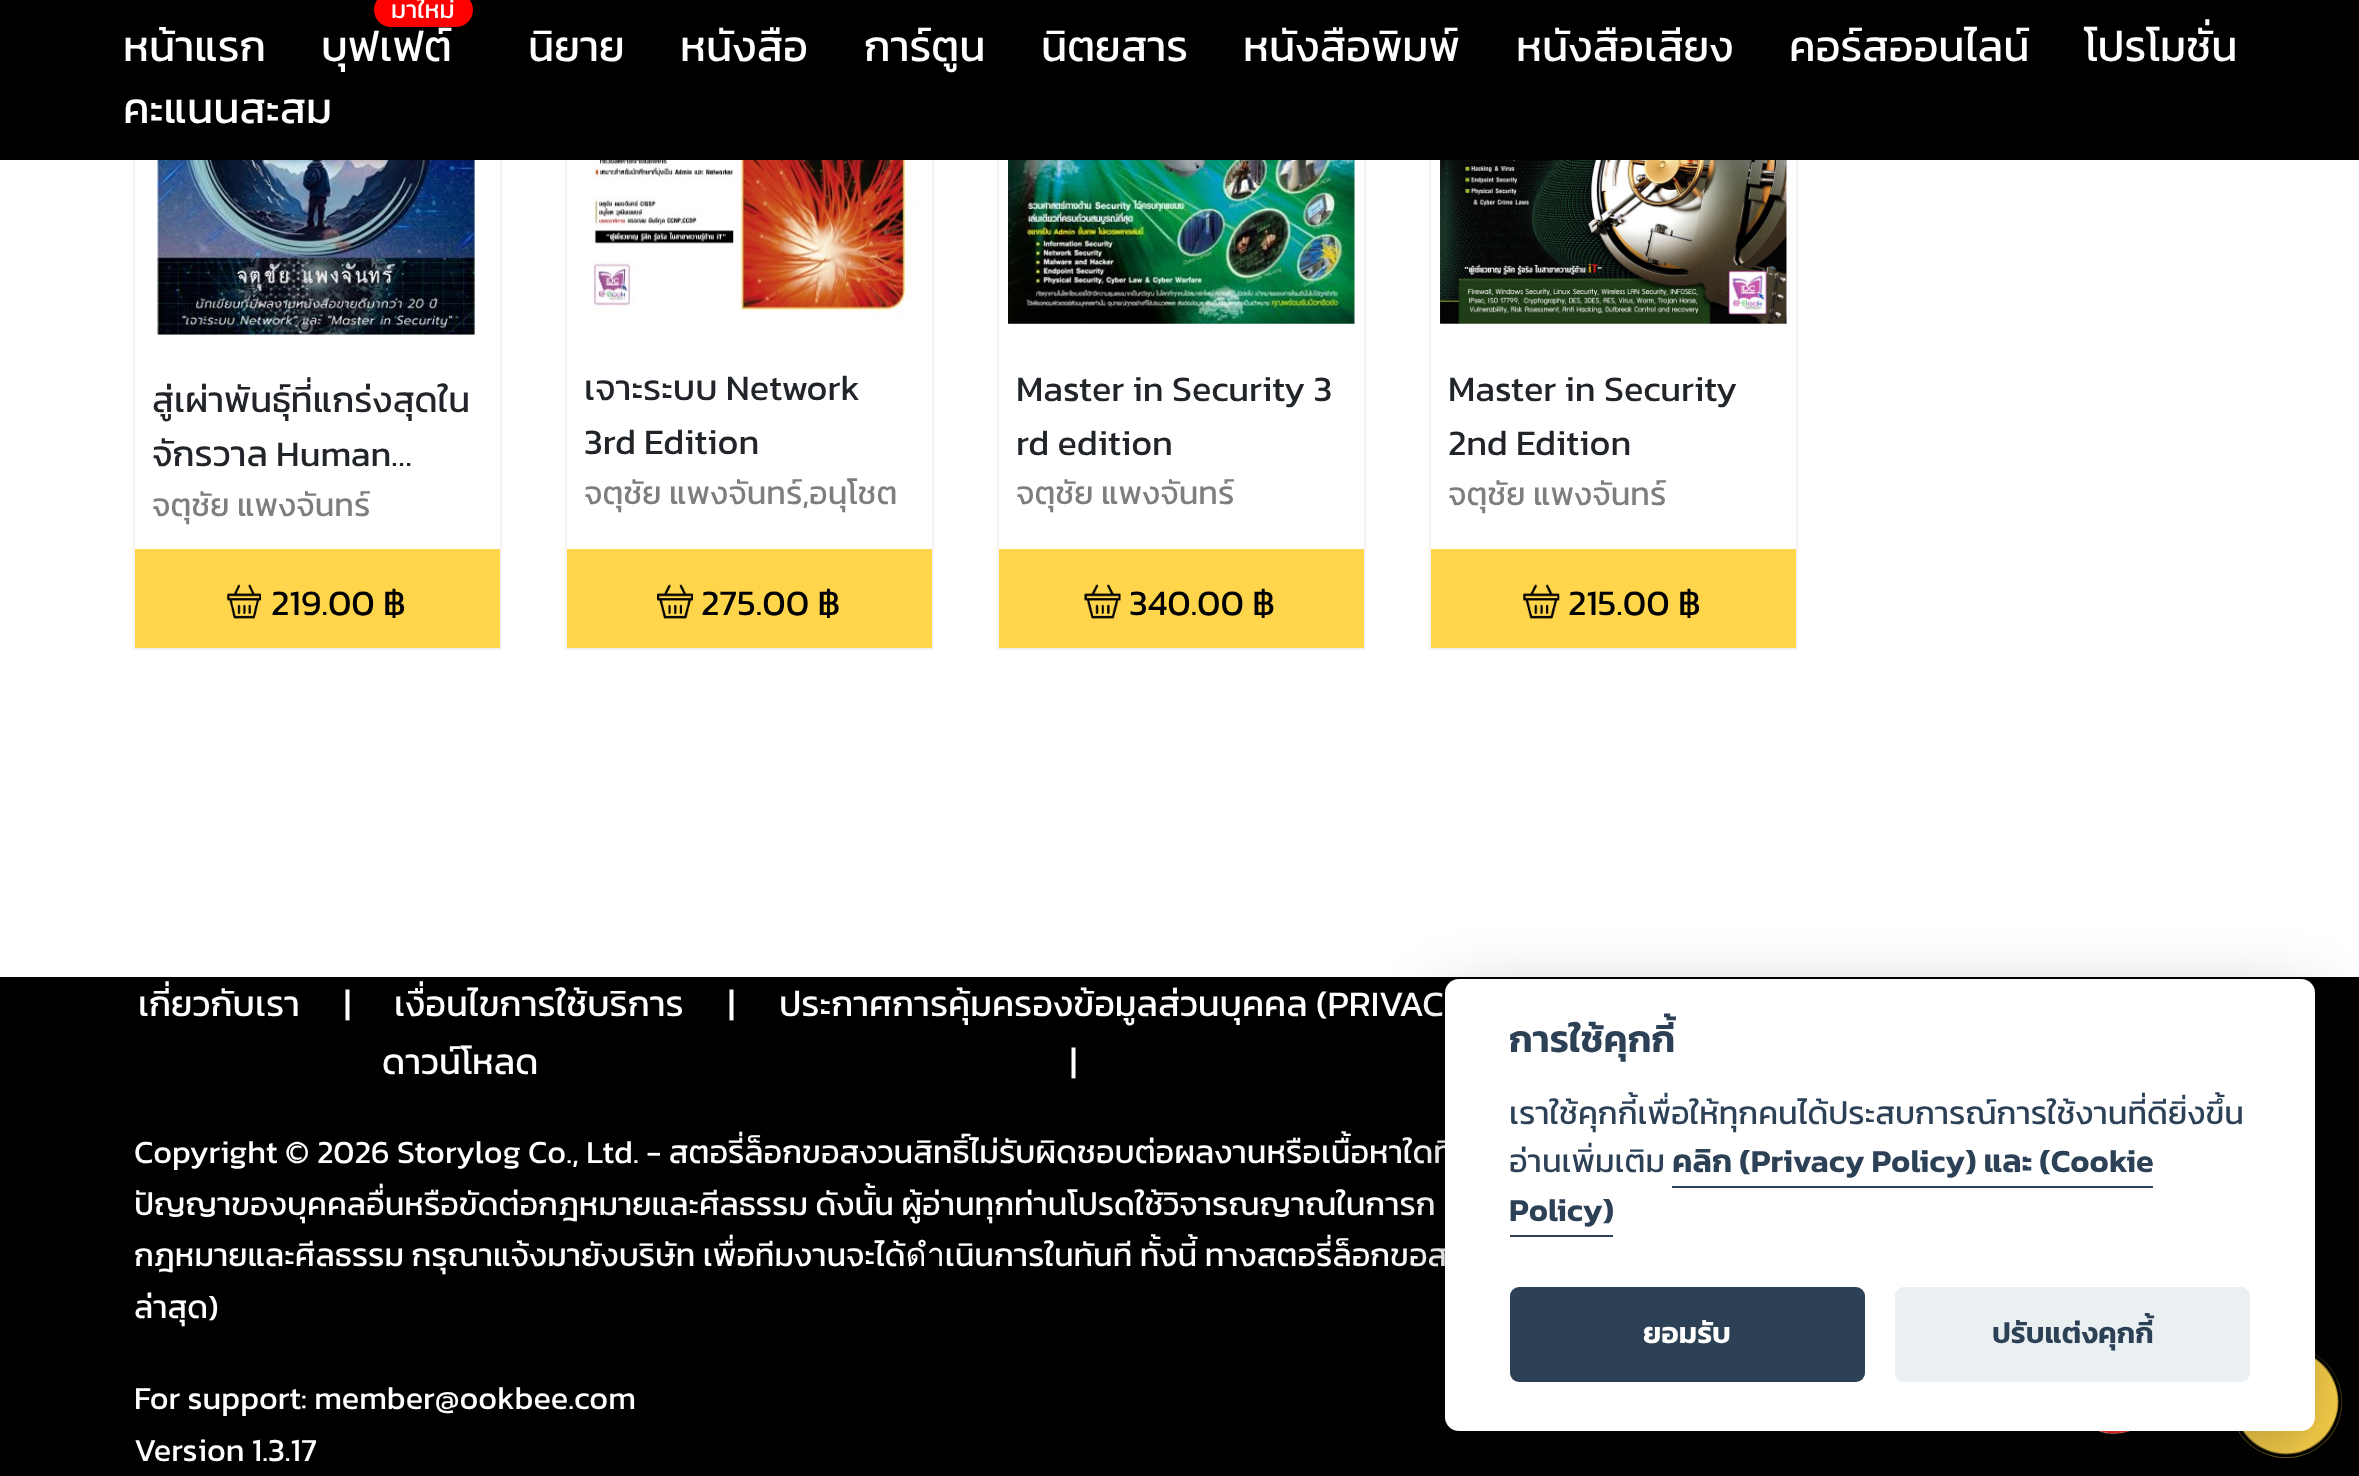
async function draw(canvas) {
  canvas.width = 2359;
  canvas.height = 1476;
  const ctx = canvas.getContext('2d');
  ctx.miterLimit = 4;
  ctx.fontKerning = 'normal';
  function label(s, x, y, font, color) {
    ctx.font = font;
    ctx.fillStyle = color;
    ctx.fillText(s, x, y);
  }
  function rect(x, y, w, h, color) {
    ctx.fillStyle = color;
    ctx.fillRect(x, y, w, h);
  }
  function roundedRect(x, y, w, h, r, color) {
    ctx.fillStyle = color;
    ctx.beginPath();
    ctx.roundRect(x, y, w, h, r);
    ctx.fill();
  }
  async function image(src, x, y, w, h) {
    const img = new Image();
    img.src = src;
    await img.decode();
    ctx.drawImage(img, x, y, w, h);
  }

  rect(0, 0, 2359, 1476, '#fff');
  rect(135, 549, 365, 99, '#ffd54c');
  await image('assets/img2.png', 227, 584, 34, 35);
  ctx.strokeStyle = '#f2f2f2';
  ctx.lineWidth = 2;
  ctx.strokeRect(134, -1, 367, 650);
  rect(567, 549, 365, 99, '#ffd54c');
  await image('assets/img4.png', 657, 584, 36, 35);
  ctx.strokeRect(566, -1, 367, 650);
  rect(999, 549, 365, 99, '#ffd54c');
  await image('assets/img6.png', 1084, 584, 37, 35);
  ctx.strokeRect(998, -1, 367, 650);
  rect(1431, 549, 365, 99, '#ffd54c');
  await image('assets/img8.png', 1523, 584, 37, 35);
  ctx.strokeRect(1430, -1, 367, 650);
  rect(0, 0, 2359, 160, '#000');
  label('หน้าแรก', 123, 61, '43.25px Kanit', '#fff');
  roundedRect(374, -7, 99, 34, 17, '#f00');
  label('มาใหม่', 391, 18, '25px Kanit', '#fff');
  label('บุฟเฟต์', 321, 61, '43.25px Kanit', '#fff');
  label('นิยาย', 528, 61, '43.25px Kanit', '#fff');
  label('หนังสือ', 680, 61, '43.25px Kanit', '#fff');
  label('การ์ตูน', 864, 61, '43.25px Kanit', '#fff');
  label('นิตยสาร', 1041, 61, '43.25px Kanit', '#fff');
  label('หนังสือพิมพ์', 1243, 61, '43.25px Kanit', '#fff');
  label('หนังสือเสียง', 1516, 61, '43.25px Kanit', '#fff');
  label('คอร์สออนไลน์', 1789, 61, '43.25px Kanit', '#fff');
  label('โปรโมชั่น', 2084, 61, '43.25px Kanit', '#fff');
  label('คะแนนสะสม', 123, 123, '43.25px Kanit', '#fff');
  await image('assets/img1.png', 157, 160, 318, 175);
  ctx.save();
  ctx.beginPath();
  ctx.rect(153, 371, 329, 108);
  ctx.clip();
  label('สู่เผ่าพันธุ์ที่แกร่งสุดใน', 152, 412, '36px Kanit', '#212529');
  label('จักรวาล Human…', 152, 466, '36px Kanit', '#212529');
  ctx.restore();
  label('จตุชัย แพงจันทร์', 152, 516, '32.4px Kanit', '#7e7e7e');
  label('219.00 ฿', 271, 615, '36px Kanit', '#000');
  await image('assets/img3.png', 591, 160, 325, 155);
  label('เจาะระบบ Network', 584, 400, '36px Kanit', '#212529');
  label('3rd Edition', 584, 454, '36px Kanit', '#212529');
  label('จตุชัย แพงจันทร์,อนุโชต', 584, 504, '32.4px Kanit', '#7e7e7e');
  label('275.00 ฿', 701, 615, '36px Kanit', '#000');
  await image('assets/img5.png', 1008, 160, 347, 164);
  label('Master in Security 3', 1016, 401, '36px Kanit', '#212529');
  label('rd edition', 1016, 455, '36px Kanit', '#212529');
  label('จตุชัย แพงจันทร์', 1016, 504, '32.4px Kanit', '#7e7e7e');
  label('340.00 ฿', 1129, 615, '36px Kanit', '#000');
  await image('assets/img7.png', 1440, 160, 347, 164);
  label('Master in Security', 1448, 401, '36px Kanit', '#212529');
  label('2nd Edition', 1448, 455, '36px Kanit', '#212529');
  label('จตุชัย แพงจันทร์', 1448, 505, '32.4px Kanit', '#7e7e7e');
  label('215.00 ฿', 1568, 615, '36px Kanit', '#000');
  rect(0, 977, 2359, 499, '#000');
  label('เกี่ยวกับเรา', 138, 1016, '36px Kanit', '#fff');
  label('|', 344, 1016, '36px Kanit', '#fff');
  label('เงื่อนไขการใช้บริการ', 394, 1016, '36px Kanit', '#fff');
  label('|', 728, 1016, '36px Kanit', '#fff');
  label('ประกาศการคุ้มครองข้อมูลส่วนบุคคล (PRIVAC', 779, 1016, '36px Kanit', '#fff');
  label('ดาวน์โหลด', 382, 1074, '36px Kanit', '#fff');
  label('|', 1070, 1074, '36px Kanit', '#fff');
  label('Copyright © 2026', 134, 1163, '32.4px Kanit', '#fff');
  label('Storylog Co., Ltd. - สตอรี่ล็อกขอสงวนสิทธิ์ไม่รับผิดชอบต่อผลงานหรือเนื้อหาใดที่', 397, 1163, '32.4px Kanit', '#fff');
  label('ปัญญาของบุคคลอื่นหรือขัดต่อกฎหมายและศีลธรรม ดังนั้น ผู้อ่านทุกท่านโปรดใช้วิจารณญาณในการก', 134, 1215, '32.4px Kanit', '#fff');
  label('กฎหมายและศีลธรรม กรุณาแจ้งมายังบริษัท เพื่อทีมงานจะได้ดำเนินการในทันที ทั้งนี้ ทางสตอรี่ล็อกขอส', 134, 1266, '32.4px Kanit', '#fff');
  label('ล่าสุด)', 134, 1318, '32.4px Kanit', '#fff');
  label('For support: member@ookbee.com', 134, 1409, '32.4px Kanit', '#fff');
  label('Version 1.3.17', 134, 1461, '32.4px Kanit', '#fff');
  await image('assets/img9.png', 2098, 1431, 33, 4);
  ctx.fillStyle = '#ffd54c';
  ctx.beginPath();
  ctx.arc(2286, 1402, 56, 0, 2 * Math.PI);
  ctx.fill();
  await image('assets/img10.png', 2237, 1353, 105, 105);
  ctx.fillStyle = '#02020347';
  ctx.filter = 'blur(34px)';
  ctx.beginPath();
  ctx.roundRect(1445, 1001, 870, 453, 14);
  ctx.fill();
  ctx.filter = 'none';
  roundedRect(1445, 979, 870, 452, 14, '#fff');
  label('การใช้คุกกี้', 1509, 1052, '600 38px Kanit', '#2d4156');
  label('เราใช้คุกกี้เพื่อให้ทุกคนได้ประสบการณ์การใช้งานที่ดียิ่งขึ้น', 1509, 1124, '32.4px Kanit', '#2d4156');
  label('อ่านเพิ่มเติม', 1509, 1172, '32.4px Kanit', '#2d4156');
  label('คลิก (Privacy Policy) และ (Cookie', 1672, 1172, '600 32.4px Kanit', '#2d4156');
  rect(1672, 1186, 481, 2, '#2d4156');
  label('Policy)', 1509, 1221, '600 32.4px Kanit', '#2d4156');
  rect(1510, 1235, 103, 2, '#2d4156');
  roundedRect(1510, 1287, 355, 95, 9, '#2d4156');
  label('ยอมรับ', 1643, 1343, '600 29.5px Kanit', '#fff');
  roundedRect(1895, 1287, 355, 95, 9, '#eaeff2');
  label('ปรับแต่งคุกกี้', 1992, 1343, '600 29.5px Kanit', '#2d4156');
}

draw(document.querySelector('canvas'));
